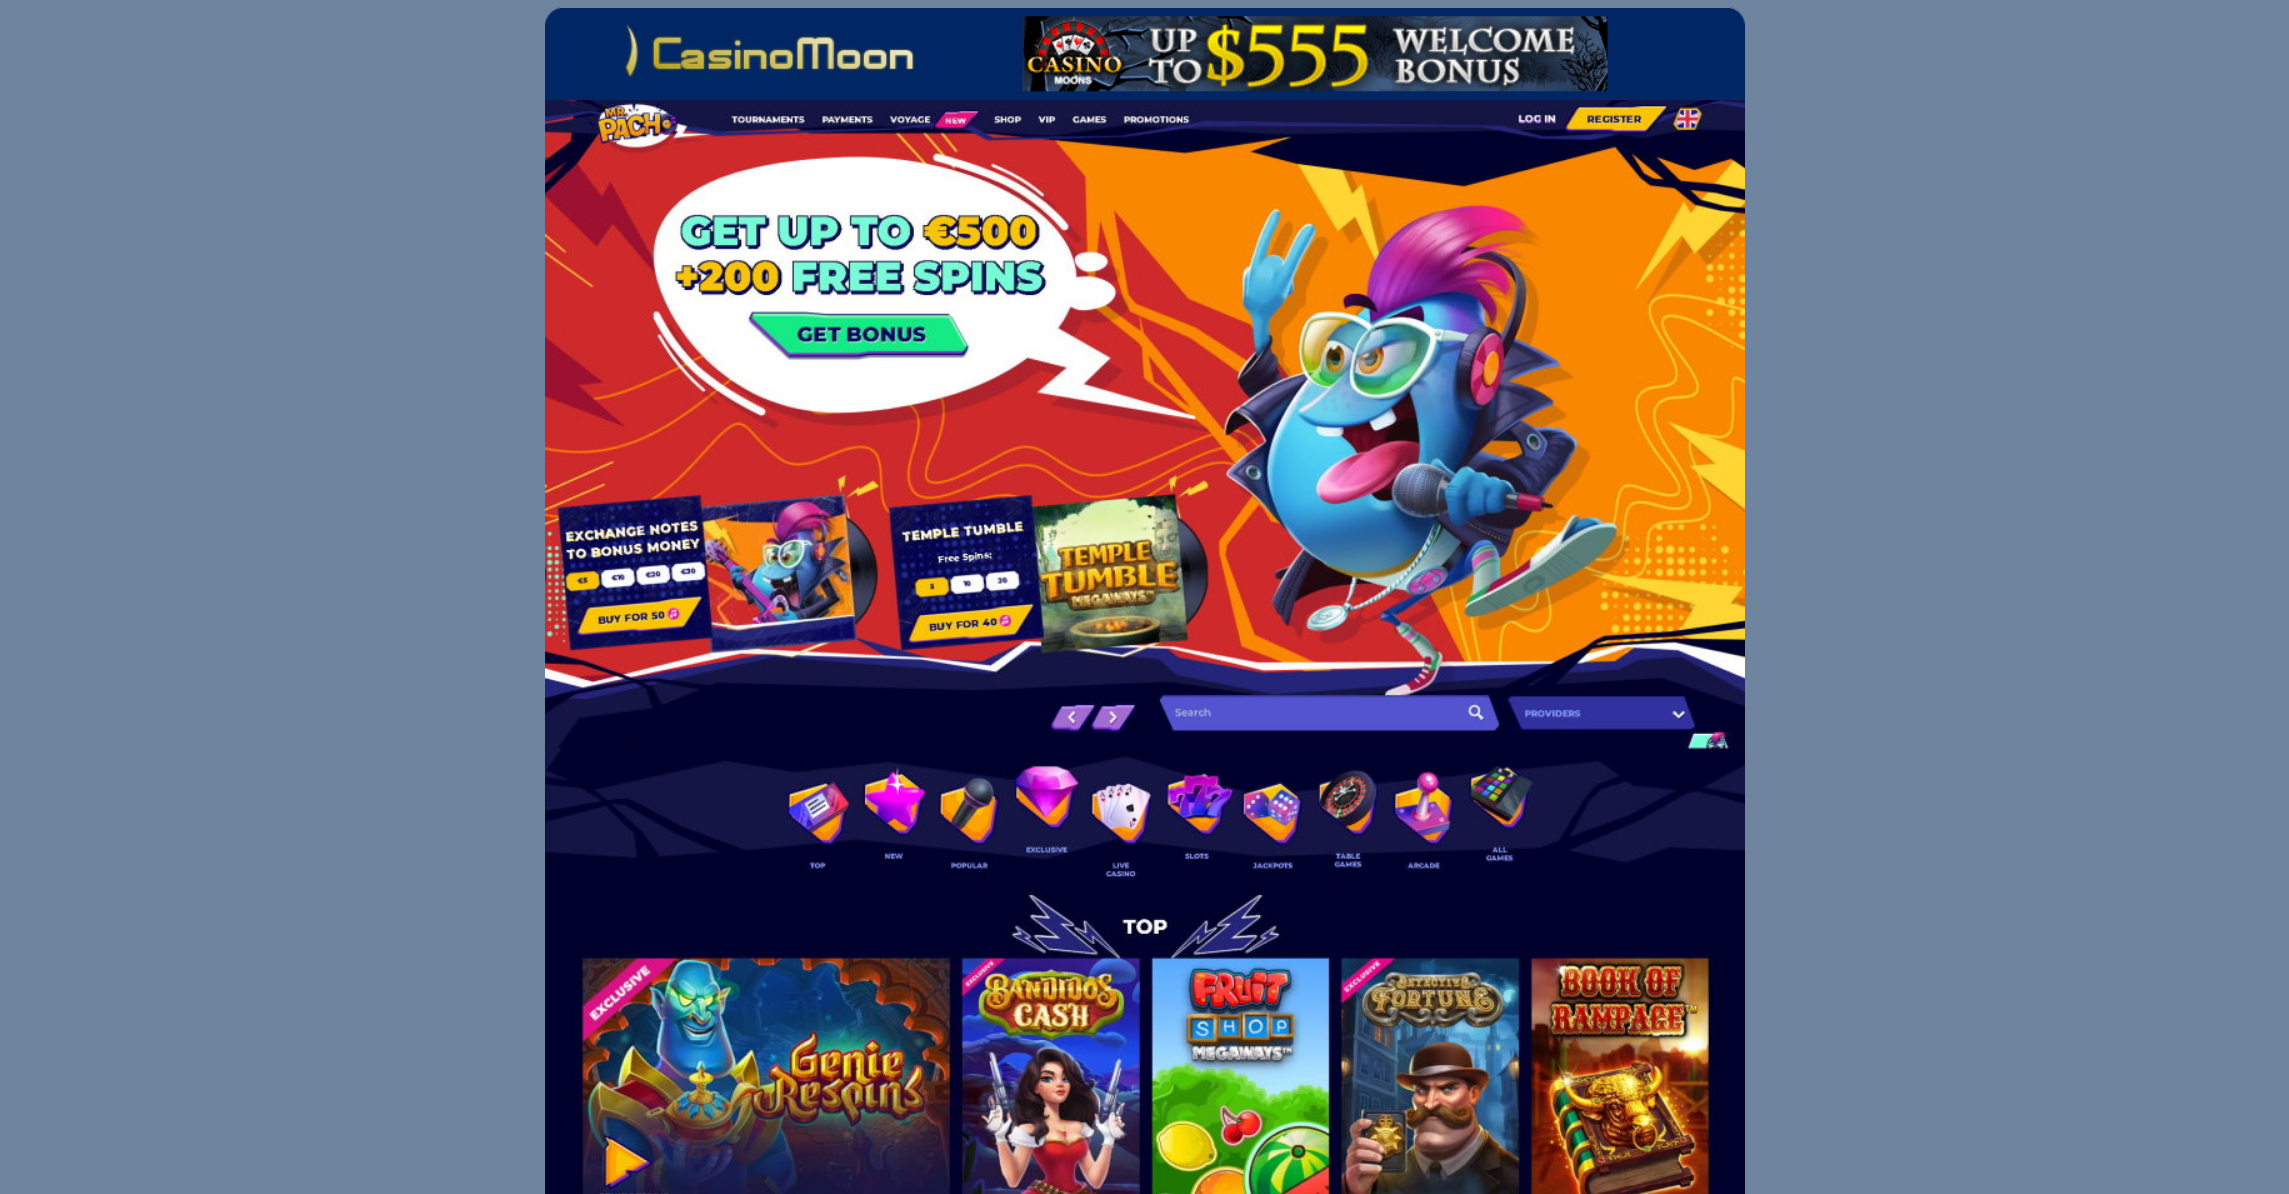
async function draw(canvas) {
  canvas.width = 2289;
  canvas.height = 1194;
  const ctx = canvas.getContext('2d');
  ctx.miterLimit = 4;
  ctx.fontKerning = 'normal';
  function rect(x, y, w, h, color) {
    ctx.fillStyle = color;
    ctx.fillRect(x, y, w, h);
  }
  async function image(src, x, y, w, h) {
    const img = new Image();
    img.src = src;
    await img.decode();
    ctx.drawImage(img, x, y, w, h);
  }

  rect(0, 0, 2289, 1194, '#6f849f');
  rect(545, 8, 1200, 92, '#002664');
  await image('assets/img1.png', 545, 7, 15, 18);
  await image('assets/img2.png', 624, 16, 291, 62);
  await image('assets/img3.png', 1022, 16, 586, 76);
  await image('assets/img4.png', 1730, 7, 15, 18);
  await image('assets/img5.png', 545, 100, 1200, 1094);
}

draw(document.querySelector('canvas'));
